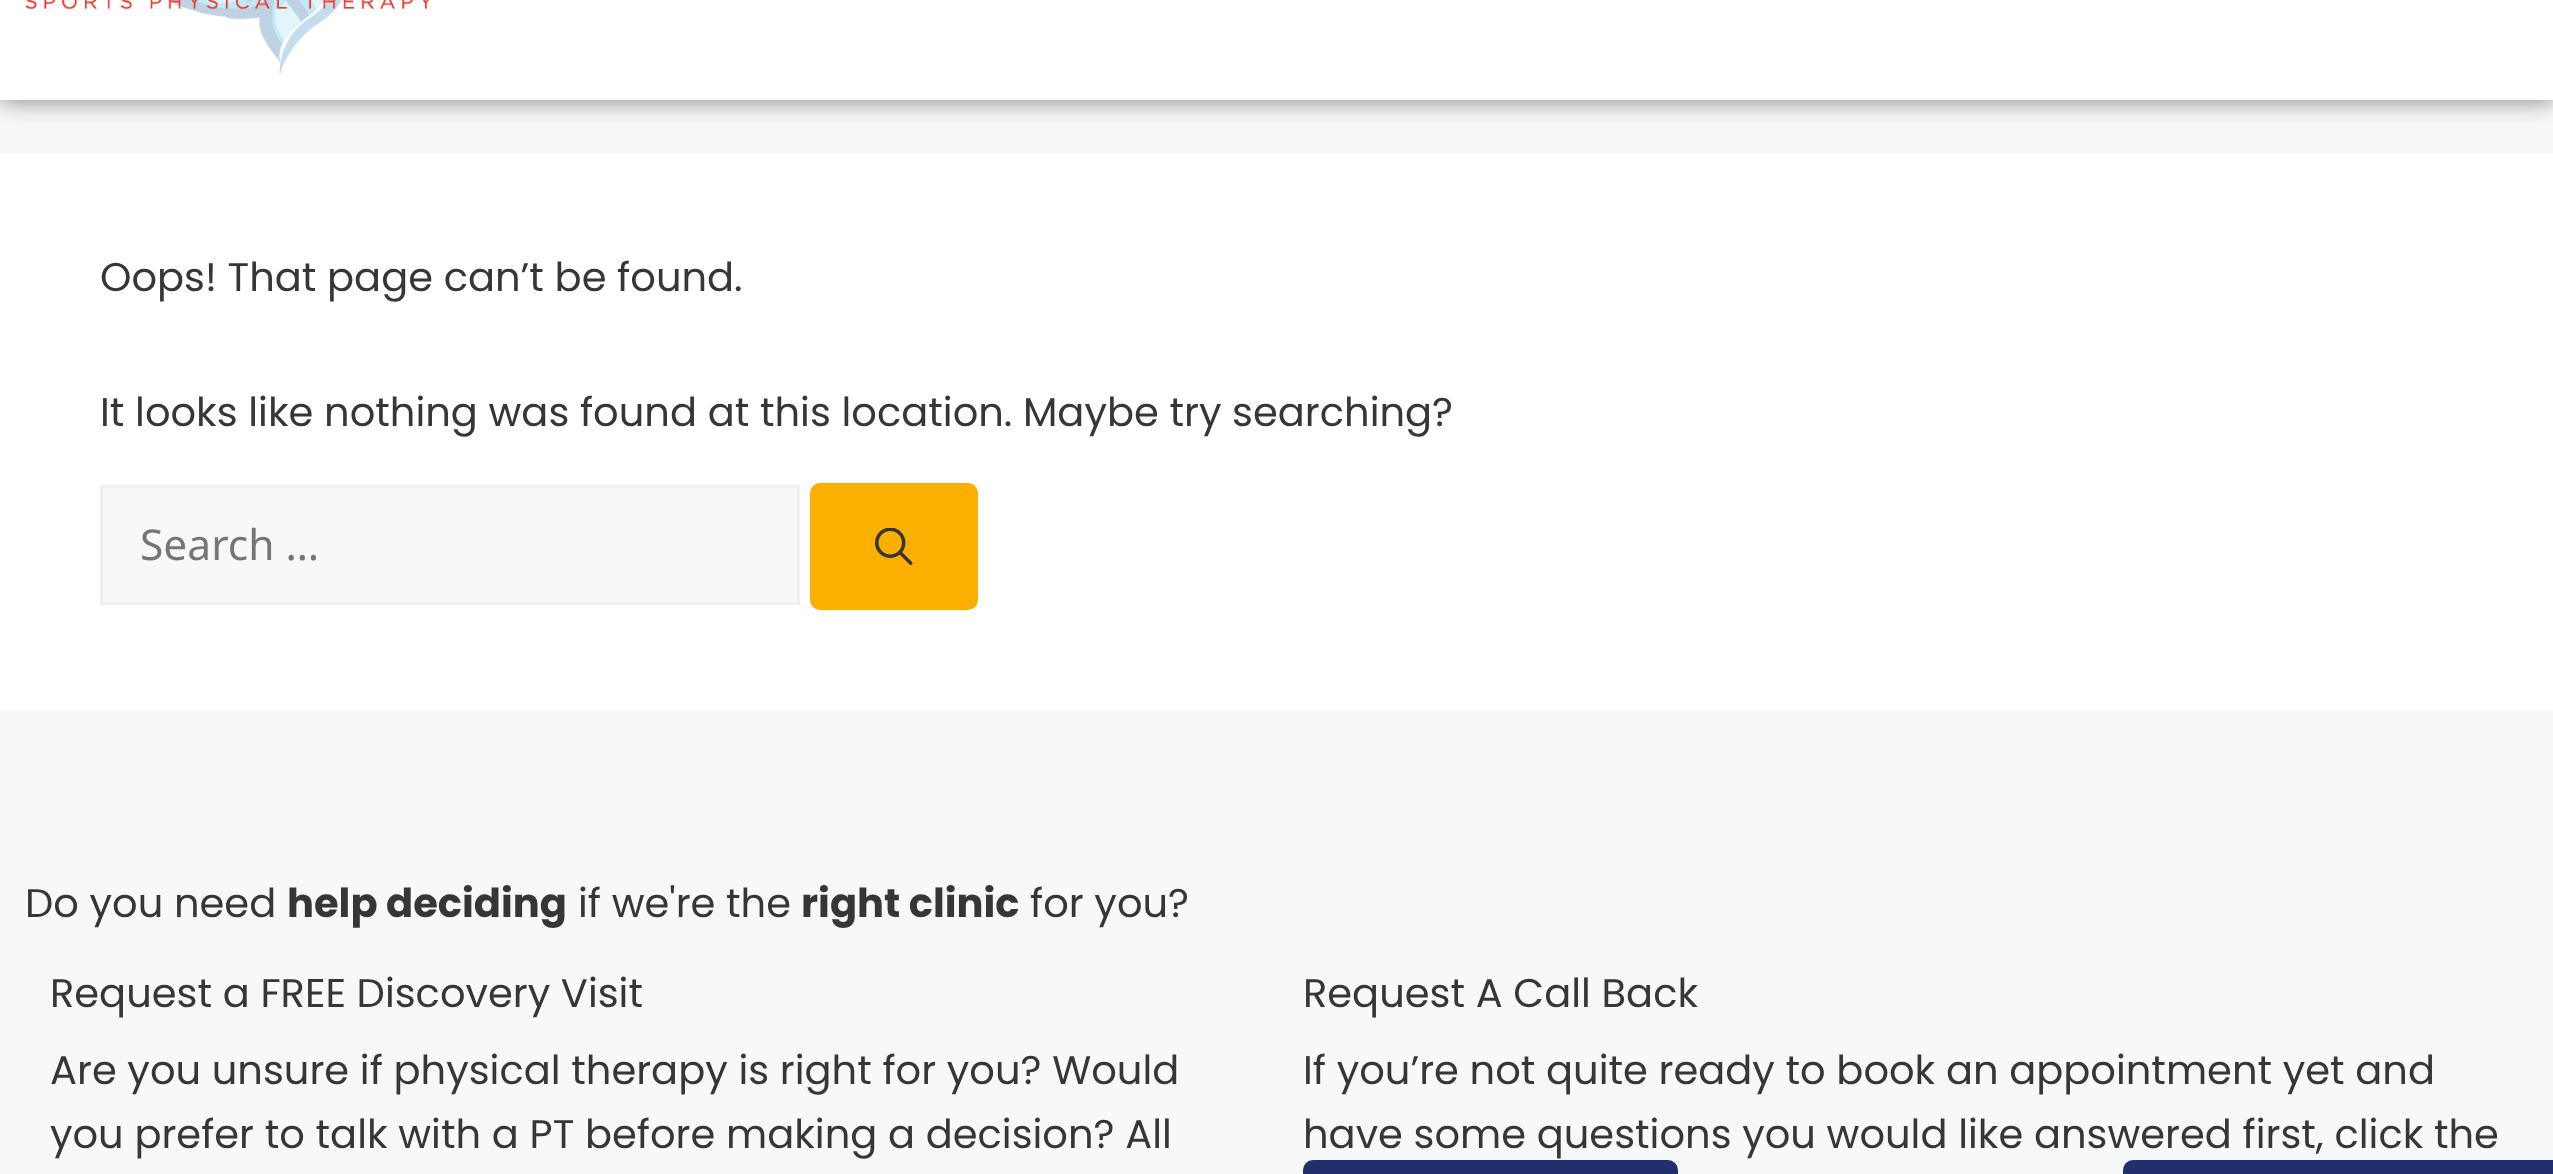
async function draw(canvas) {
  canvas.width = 2553;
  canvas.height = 1174;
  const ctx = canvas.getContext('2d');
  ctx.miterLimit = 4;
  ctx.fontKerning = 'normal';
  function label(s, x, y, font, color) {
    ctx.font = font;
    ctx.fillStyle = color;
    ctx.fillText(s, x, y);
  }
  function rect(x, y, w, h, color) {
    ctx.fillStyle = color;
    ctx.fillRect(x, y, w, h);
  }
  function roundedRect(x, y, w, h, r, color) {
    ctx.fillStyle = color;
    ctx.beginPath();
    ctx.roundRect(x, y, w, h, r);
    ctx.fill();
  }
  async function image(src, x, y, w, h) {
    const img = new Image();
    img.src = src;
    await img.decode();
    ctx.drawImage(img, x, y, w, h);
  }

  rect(0, 0, 2553, 1174, '#f7f8f9');
  ctx.fillStyle = '#00000080';
  ctx.filter = 'blur(12.5px)';
  ctx.beginPath();
  ctx.rect(0, -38, 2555, 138);
  ctx.fill();
  ctx.filter = 'none';
  rect(0, 0, 2553, 100, '#fff');
  await image('assets/img1.png', 25, 0, 404, 75);
  rect(0, 153, 2553, 557, '#fff');
  label('Oops! That page can’t be found.', 100, 291, '40px Poppins', '#363636');
  label('It looks like nothing was found at this location. Maybe try searching?', 100, 426, '40px Poppins', '#363636');
  ctx.fillStyle = '#f7f8f9';
  ctx.beginPath();
  ctx.rect(101.5, 486.5, 697, 117);
  ctx.fill();
  ctx.strokeStyle = '#f0f0f0';
  ctx.lineWidth = 3;
  ctx.stroke();
  label('Search …', 140, 560, '42.5px Noto Sans', '#757575');
  roundedRect(810, 483, 168, 127, 10, '#fbaf00');
  await image('assets/img2.png', 875, 528, 38, 37);
  label('Do you need', 25, 917, '40px Poppins', '#363636');
  label('help deciding', 287, 917, 'bold 40px Poppins', '#363636');
  label('if we\'re the', 578, 917, '40px Poppins', '#363636');
  label('right clinic', 801, 917, 'bold 40px Poppins', '#363636');
  label('for you?', 1030, 917, '40px Poppins', '#363636');
  label('Request a FREE Discovery Visit', 50, 1007, '40px Poppins', '#363636');
  label('Are you unsure if physical therapy is right for you? Would', 50, 1084, '40px Poppins', '#363636');
  label('you prefer to talk with a PT before making a decision? All', 50, 1148, '40px Poppins', '#363636');
  label('Request A Call Back', 1303, 1007, '40px Poppins', '#363636');
  label('If you’re not quite ready to book an appointment yet and', 1303, 1084, '40px Poppins', '#363636');
  label('have some questions you would like answered first, click the', 1303, 1148, '40px Poppins', '#363636');
  roundedRect(1303, 1160, 375, 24, 10, '#1f306c');
  roundedRect(2123, 1160, 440, 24, 10, '#1f306c');
}

draw(document.querySelector('canvas'));
